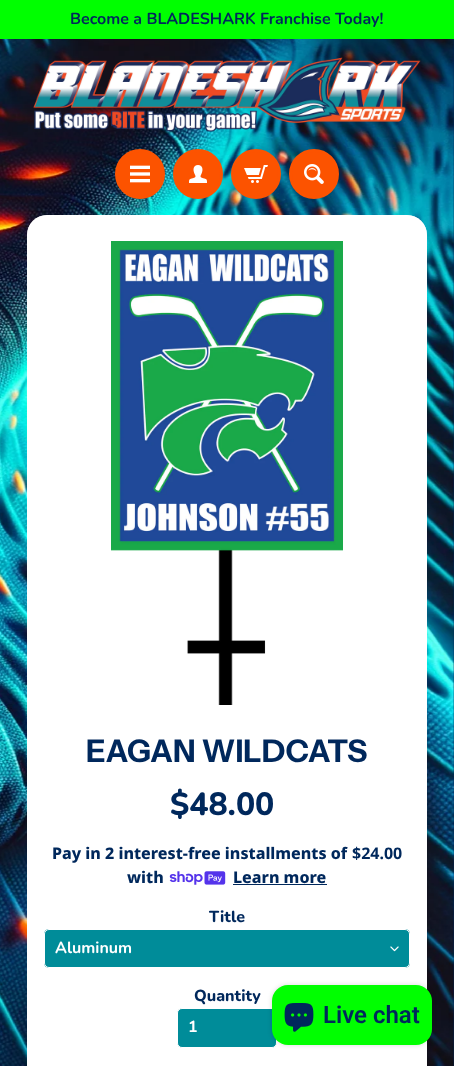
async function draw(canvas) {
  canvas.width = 454;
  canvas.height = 1066;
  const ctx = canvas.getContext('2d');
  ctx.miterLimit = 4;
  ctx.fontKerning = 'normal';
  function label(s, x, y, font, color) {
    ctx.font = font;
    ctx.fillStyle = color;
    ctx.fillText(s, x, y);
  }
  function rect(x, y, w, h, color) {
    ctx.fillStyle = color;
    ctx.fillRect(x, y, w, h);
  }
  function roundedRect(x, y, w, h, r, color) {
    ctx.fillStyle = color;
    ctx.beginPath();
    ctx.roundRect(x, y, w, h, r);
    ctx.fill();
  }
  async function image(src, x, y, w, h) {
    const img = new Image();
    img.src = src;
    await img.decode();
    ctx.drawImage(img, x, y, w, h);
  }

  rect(0, 0, 454, 1066, '#00285c');
  await image('assets/img1.png', 0, 39, 454, 1027);
  rect(0, 0, 454, 39, '#0f0');
  label('Become a BLADESHARK Franchise Today!', 70, 24, 'bold 16px Nunito', '#00285c');
  await image('assets/img2.png', 33, 57, 388, 75);
  ctx.fillStyle = '#fc5300';
  ctx.beginPath();
  ctx.arc(140, 174, 23.5, 0, 2 * Math.PI);
  ctx.fill();
  ctx.strokeStyle = '#fc5300';
  ctx.lineWidth = 3;
  ctx.stroke();
  await image('assets/img3.png', 130, 165, 20, 18);
  ctx.beginPath();
  ctx.arc(198, 174, 23.5, 0, 2 * Math.PI);
  ctx.fill();
  ctx.stroke();
  await image('assets/img4.png', 189, 165, 18, 18);
  ctx.beginPath();
  ctx.arc(256, 174, 23.5, 0, 2 * Math.PI);
  ctx.fill();
  ctx.stroke();
  await image('assets/img5.png', 244, 165, 24, 18);
  ctx.beginPath();
  ctx.arc(314, 174, 23.5, 0, 2 * Math.PI);
  ctx.fill();
  ctx.stroke();
  await image('assets/img6.png', 304, 164, 20, 20);
  roundedRect(27, 215, 400, 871, 20, '#fff');
  ctx.beginPath();
  ctx.roundRect(27.5, 215.5, 399, 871, 19.5);
  ctx.strokeStyle = '#ffffffb3';
  ctx.lineWidth = 1;
  ctx.stroke();
  await image('assets/img7.png', 111, 241, 232, 464);
  label('EAGAN WILDCATS', 86, 762, 'bold 31.25px Instrument Sans', '#00285c');
  label('$48.00', 170, 815, '800 32px Nunito', '#00285c');
  label('Pay in 2 interest-free installments of', 52, 859, '800 16px Noto Sans', '#00285c');
  label('$24.00', 352, 859, 'bold 16px Noto Sans', '#00285c');
  label('with', 127, 883, '800 16px Noto Sans', '#00285c');
  await image('assets/img8.png', 169, 871, 57, 14);
  label('Learn more', 233, 883, '800 16px Noto Sans', '#00285c');
  rect(233, 884, 94, 1, '#00285c');
  label('Title', 209, 922, '800 16px Nunito', '#00285c');
  roundedRect(44, 929, 366, 39, 5, '#008c99');
  await image('assets/img9.png', 390, 946, 9, 6);
  ctx.beginPath();
  ctx.roundRect(44.5, 929.5, 365, 38, 4.5);
  ctx.strokeStyle = '#fff';
  ctx.stroke();
  label('Aluminum', 55, 953, 'bold 16px Nunito', '#fff');
  label('Quantity', 194, 1001, '800 16px Nunito', '#00285c');
  ctx.fillStyle = '#008c99';
  ctx.beginPath();
  ctx.roundRect(177.5, 1008.5, 99, 39, 4.5);
  ctx.fill();
  ctx.stroke();
  label('1', 188, 1032, 'bold 16px Nunito', '#fff');
  ctx.fillStyle = '#00000026';
  ctx.filter = 'blur(2.5px)';
  ctx.beginPath();
  ctx.roundRect(272, 985, 160, 60, 16);
  ctx.fill();
  ctx.filter = 'none';
  roundedRect(272, 985, 160, 60, 16, '#0f0');
  await image('assets/img10.png', 284, 1003, 30, 29);
  label('Live chat', 323, 1023, '600 24px Roboto', '#00285c');
}

draw(document.querySelector('canvas'));
